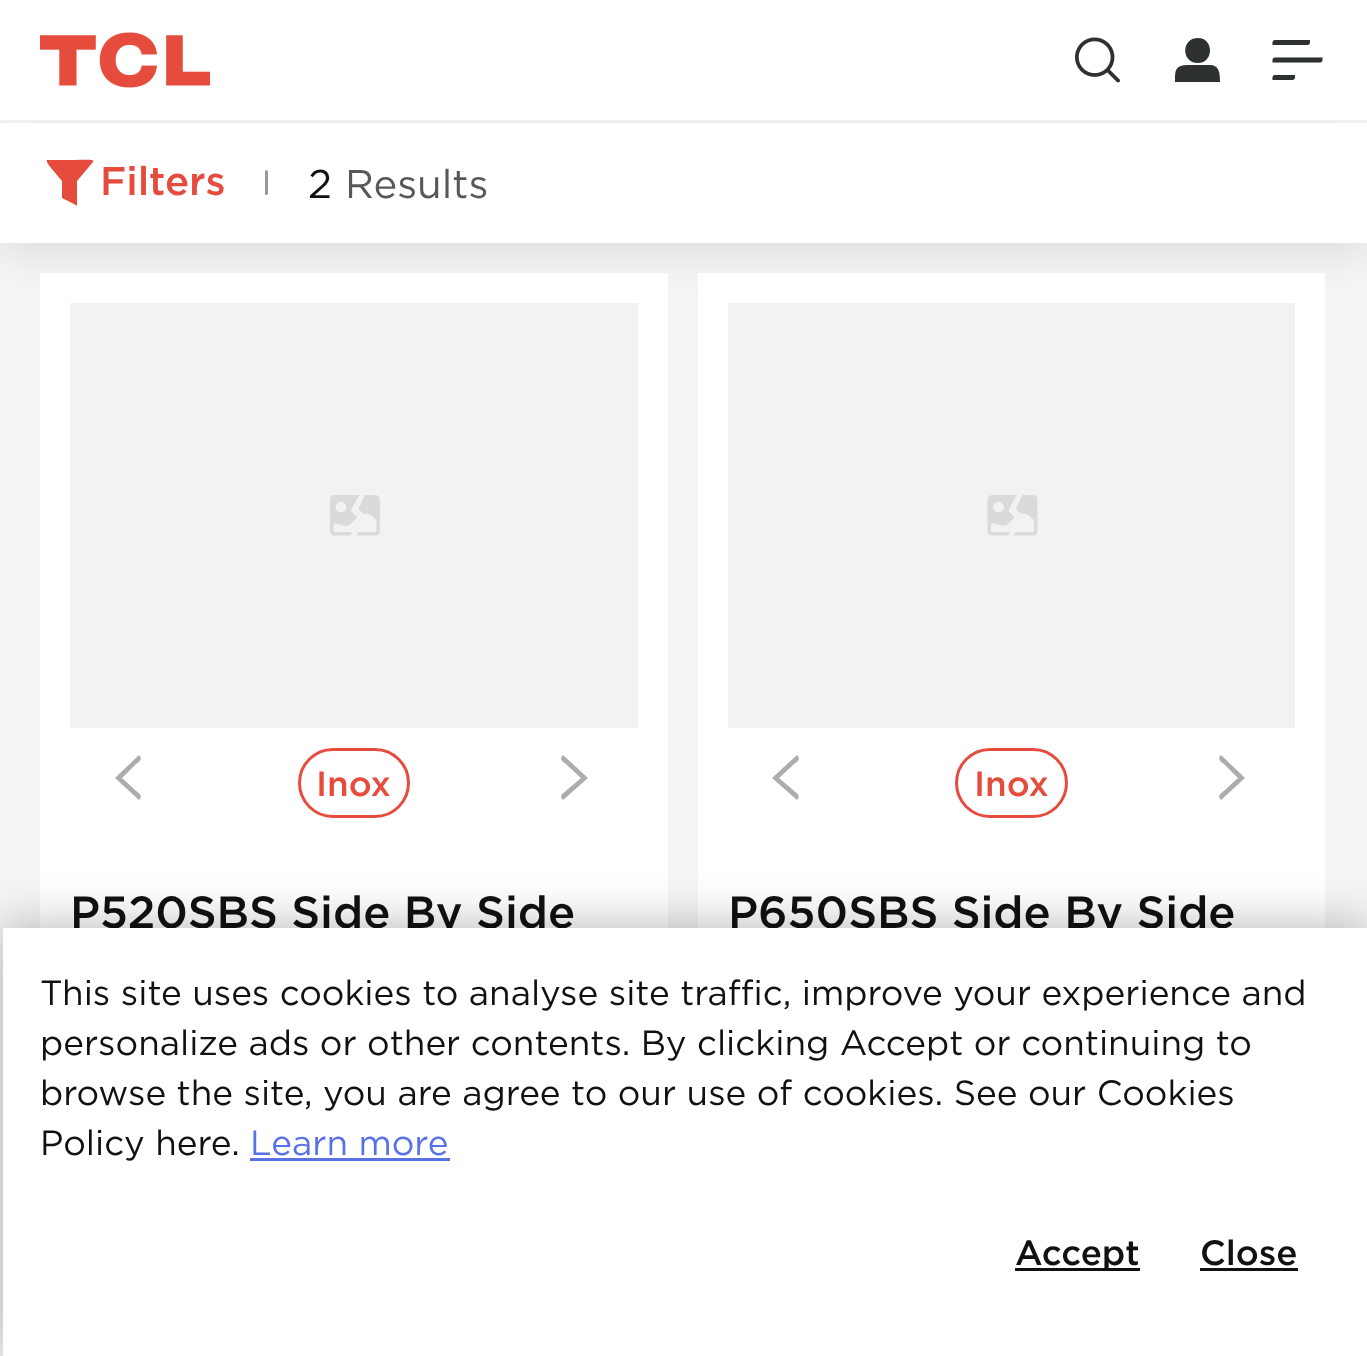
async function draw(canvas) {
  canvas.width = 1367;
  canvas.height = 1356;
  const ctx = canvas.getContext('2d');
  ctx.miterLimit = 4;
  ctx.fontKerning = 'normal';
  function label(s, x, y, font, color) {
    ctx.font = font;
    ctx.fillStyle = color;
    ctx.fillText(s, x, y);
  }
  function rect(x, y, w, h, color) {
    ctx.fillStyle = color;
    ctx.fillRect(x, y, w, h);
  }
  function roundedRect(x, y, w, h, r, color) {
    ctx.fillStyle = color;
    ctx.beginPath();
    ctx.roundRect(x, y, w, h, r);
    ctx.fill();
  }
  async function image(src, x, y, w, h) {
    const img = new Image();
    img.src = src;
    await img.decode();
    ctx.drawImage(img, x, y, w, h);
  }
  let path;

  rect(0, 0, 1367, 1356, '#f5f5f5');
  ctx.fillStyle = '#0000001a';
  ctx.filter = 'blur(20px)';
  ctx.beginPath();
  ctx.rect(0, 133, 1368, 120);
  ctx.fill();
  ctx.filter = 'none';
  rect(0, 0, 1367, 120, '#fff');
  await image('assets/img1.png', 40, 32, 170, 56);
  await image('assets/img2.png', 1075, 37, 45, 46);
  ctx.fillStyle = '#2d3132';
  path = new Path2D('M1210 65C1220 65 1220 75 1220 82H1175C1175 70 1175 65 1189 65ZM1198 38C1214 38 1214 63 1198 63C1181 63 1181 38 1198 38Z');
  ctx.fill(path);
  await image('assets/img3.png', 1272, 40, 51, 40);
  rect(0, 123, 1367, 120, '#fff');
  ctx.fillStyle = '#e64c3d';
  path = new Path2D('M93 162L77 181V205C77 206 75 205 74 204L62 198V181C54 171 45 162 47 160H70C88 160 95 159 93 162Z');
  ctx.fill(path);
  label('Filters', 100, 195, '500 40px Gotham', '#e64c3d');
  roundedRect(265, 170, 3, 25, 1.5, '#999');
  label('2', 308, 198, '40px Gotham', '#111');
  label('Results', 345, 198, '40px Gotham', '#585858');
  rect(40, 273, 628, 655, '#fff');
  rect(70, 303, 568, 425, '#f2f2f2');
  await image('assets/img4.png', 330, 495, 50, 41);
  ctx.fillStyle = '#abadad';
  path = new Path2D('M139 755C144 760 138 762 134 766L122 778L134 789C138 793 144 795 139 800L115 778Z');
  ctx.fill(path);
  ctx.beginPath();
  ctx.roundRect(299.5, 749.5, 109, 67, 33.5);
  ctx.strokeStyle = '#e64c3d';
  ctx.lineWidth = 3;
  ctx.stroke();
  label('Inox', 316, 796, '500 35px Gotham', '#e64c3d');
  ctx.fillStyle = '#abadad';
  path = new Path2D('M563 755C558 760 564 762 568 766L581 778L568 789C564 793 558 795 563 800L588 778Z');
  ctx.fill(path);
  label('P520SBS Side By Side', 70, 928, '500 45px Gotham', '#111');
  rect(698, 273, 627, 655, '#fff');
  rect(728, 303, 567, 425, '#f2f2f2');
  await image('assets/img5.png', 987, 495, 51, 41);
  ctx.fillStyle = '#abadad';
  path = new Path2D('M797 755C802 760 796 762 792 766L779 778L792 789C796 793 802 795 797 800L772 778Z');
  ctx.fill(path);
  ctx.beginPath();
  ctx.roundRect(956.5, 749.5, 110, 67, 33.5);
  ctx.stroke();
  label('Inox', 974, 796, '500 35px Gotham', '#e64c3d');
  ctx.fillStyle = '#abadad';
  path = new Path2D('M1221 755C1216 760 1222 762 1226 766L1238 778L1226 789C1222 793 1216 795 1221 800L1245 778Z');
  ctx.fill(path);
  label('P650SBS Side By Side', 728, 928, '500 45px Gotham', '#111');
  ctx.fillStyle = '#0000004d';
  ctx.filter = 'blur(25px)';
  ctx.beginPath();
  ctx.rect(3, 928, 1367, 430);
  ctx.fill();
  ctx.filter = 'none';
  rect(3, 928, 1364, 428, '#fff');
  label('This site uses cookies to analyse site traffic, improve your experience and', 40, 1005, '35px Gotham', '#111');
  label('personalize ads or other contents. By clicking Accept or continuing to', 40, 1055, '35px Gotham', '#111');
  label('browse the site, you are agree to our use of cookies. See our Cookies', 40, 1105, '35px Gotham', '#111');
  label('Policy here.', 40, 1155, '35px Gotham', '#111');
  label('Learn more', 250, 1155, '35px Gotham', '#5971e5');
  rect(250, 1158, 200, 3, '#5971e5');
  rect(1015, 1268, 125, 3, '#111');
  label('Accept', 1015, 1265, '500 35px Gotham', '#111');
  label('Close', 1200, 1265, '500 35px Gotham', '#111');
  rect(1200, 1268, 98, 3, '#111');
}

draw(document.querySelector('canvas'));
